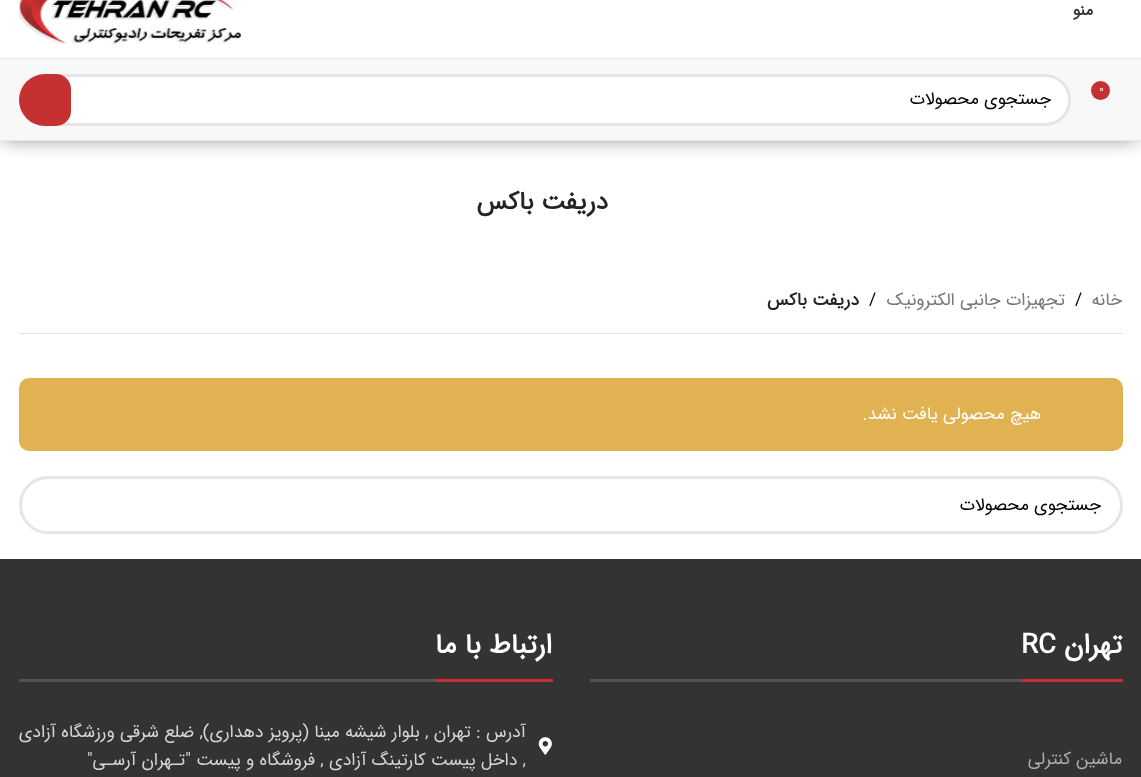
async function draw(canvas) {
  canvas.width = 1141;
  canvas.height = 777;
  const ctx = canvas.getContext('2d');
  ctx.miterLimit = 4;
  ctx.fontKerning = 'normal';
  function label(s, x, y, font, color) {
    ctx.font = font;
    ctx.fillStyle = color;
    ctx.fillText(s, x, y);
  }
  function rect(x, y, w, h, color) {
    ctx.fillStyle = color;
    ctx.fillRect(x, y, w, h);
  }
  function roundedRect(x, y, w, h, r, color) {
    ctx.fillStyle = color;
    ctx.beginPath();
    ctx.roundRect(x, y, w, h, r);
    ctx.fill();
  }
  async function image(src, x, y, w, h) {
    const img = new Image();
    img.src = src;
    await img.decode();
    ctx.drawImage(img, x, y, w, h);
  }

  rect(0, 0, 1141, 777, '#fff');
  ctx.save();
  ctx.beginPath();
  ctx.rect(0, 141, 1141, 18);
  ctx.clip();
  ctx.fillStyle = '#777';
  ctx.filter = 'blur(10px)';
  ctx.beginPath();
  ctx.rect(3, -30, 1133, 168);
  ctx.fill();
  ctx.filter = 'none';
  ctx.restore();
  rect(0, 58, 1141, 1, '#e8e8e8');
  ctx.direction = 'rtl';
  label('منو', 1093, 15, 'bold 16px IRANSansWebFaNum', '#333');
  await image('assets/img1.png', 19, 0, 223, 45);
  rect(0, 59, 1141, 81, '#f8f8f8');
  rect(0, 140, 1141, 1, '#e8e8e8');
  ctx.fillStyle = '#c53031';
  ctx.beginPath();
  ctx.arc(1100.5, 90.5, 9.5, 0, 2 * Math.PI);
  ctx.fill();
  ctx.direction = 'ltr';
  label('0', 1099, 92, '11px IRANSansWebFaNum', '#fff');
  roundedRect(19, 74, 1052, 52, 26, '#fff');
  ctx.beginPath();
  ctx.roundRect(20.5, 75.5, 1049, 49, 24.5);
  ctx.strokeStyle = '#0000001a';
  ctx.lineWidth = 3;
  ctx.stroke();
  ctx.direction = 'rtl';
  label('جستجوی محصولات', 1051, 104, '17.5px IRANSansWebFaNum', '#000');
  ctx.fillStyle = '#c53031';
  ctx.beginPath();
  ctx.roundRect(19, 74, 52, 52, [26, 15, 15, 26]);
  ctx.fill();
  label('دریفت باکس', 608, 209, 'bold 25px IRANSansWebFaNum', '#242424');
  rect(19, 333, 1104, 1, '#e4e4e4');
  label('خانه', 1122, 305, '17.5px IRANSansWebFaNum', '#767676');
  ctx.direction = 'ltr';
  label('/', 1075, 305, '17.5px IRANSansWebFaNum', '#000');
  ctx.direction = 'rtl';
  label('تجهیزات جانبی الکترونیک', 1065, 305, '17.5px IRANSansWebFaNum', '#767676');
  ctx.direction = 'ltr';
  label('/', 869, 305, '17.5px IRANSansWebFaNum', '#000');
  ctx.direction = 'rtl';
  label('دریفت باکس', 859, 305, 'bold 17.5px IRANSansWebFaNum', '#242424');
  roundedRect(19, 378, 1104, 73, 10, '#e0b252');
  label('هیچ محصولی یافت نشد.', 1041, 419, '17.5px IRANSansWebFaNum', '#fff');
  ctx.beginPath();
  ctx.roundRect(20.5, 477.5, 1101, 55, 27.5);
  ctx.strokeStyle = '#e6e6e6';
  ctx.stroke();
  label('جستجوی محصولات', 1101, 510, '17.5px IRANSansWebFaNum', '#000');
  rect(0, 559, 1141, 218, '#333');
  rect(590, 679, 431, 3, '#525252');
  rect(1021, 679, 102, 3, '#c53031');
  label('تهران', 1122, 653, 'bold 27.5px IRANSansWebFaNum', '#fff');
  ctx.direction = 'ltr';
  label('RC', 1021, 653, 'bold 27.5px IRANSansWebFaNum', '#fff');
  ctx.direction = 'rtl';
  label('ماشین کنترلی', 1122, 764, '17.5px IRANSansWebFaNum', '#adadad');
  rect(19, 679, 416, 3, '#525252');
  rect(435, 679, 118, 3, '#c53031');
  label('ارتباط با ما', 552, 653, 'bold 27.5px IRANSansWebFaNum', '#fff');
  await image('assets/img2.png', 538, 737, 14, 18);
  label('آدرس : تهران , بلوار شیشه مینا (پرویز دهداری), ضلع شرقی ورزشگاه آزادی', 526, 737, '17.5px IRANSansWebFaNum', '#d6d6d6');
  label(', داخل پیست کارتینگ آزادی , فروشگاه و پیست "تـهران آرسـی"', 526, 765, '17.5px IRANSansWebFaNum', '#d6d6d6');
}

draw(document.querySelector('canvas'));
